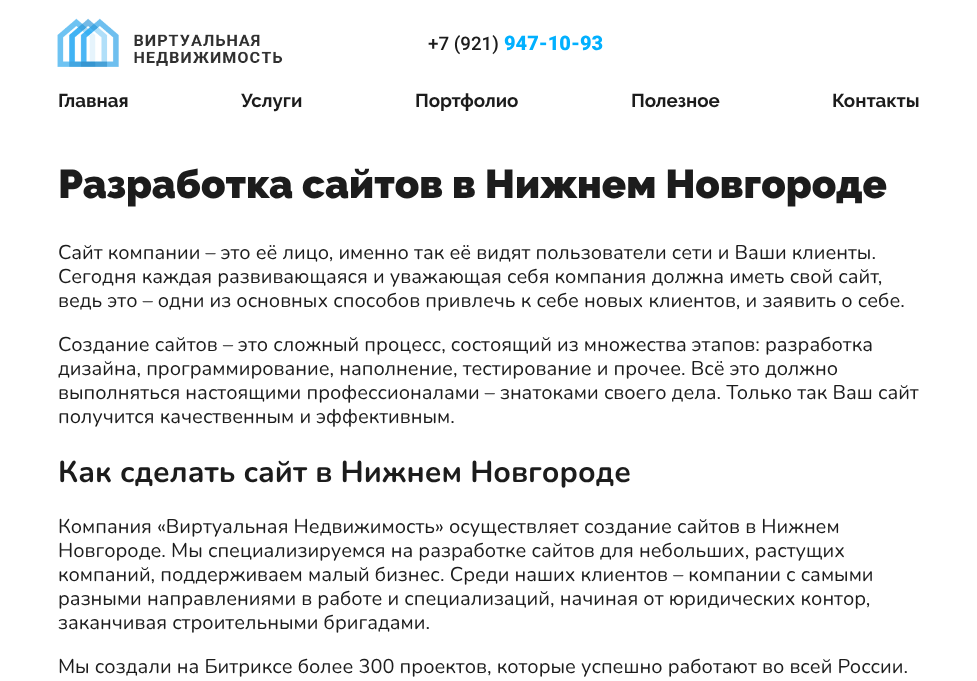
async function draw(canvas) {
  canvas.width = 977;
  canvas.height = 681;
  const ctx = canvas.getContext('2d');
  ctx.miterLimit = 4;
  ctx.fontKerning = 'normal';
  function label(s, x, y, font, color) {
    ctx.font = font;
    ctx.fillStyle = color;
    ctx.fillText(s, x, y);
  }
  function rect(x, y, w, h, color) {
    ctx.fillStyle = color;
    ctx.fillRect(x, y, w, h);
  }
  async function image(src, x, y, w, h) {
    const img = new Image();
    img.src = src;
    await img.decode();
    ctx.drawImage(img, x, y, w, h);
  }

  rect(0, 0, 977, 681, '#fff');
  await image('assets/img1.png', 57, 18, 226, 49);
  label('+7 (921)', 428, 50, '500 18.75px Roboto', '#1c1c1c');
  label('947-10-93', 504, 50, '900 20px Roboto', '#01b0ff');
  label('Главная', 58, 107, 'bold 18.75px Raleway', '#1c1c1c');
  label('Услуги', 241, 107, 'bold 18.75px Raleway', '#1c1c1c');
  label('Портфолио', 415, 107, 'bold 18.75px Raleway', '#1c1c1c');
  label('Полезное', 631, 107, 'bold 18.75px Raleway', '#1c1c1c');
  label('Контакты', 832, 107, 'bold 18.75px Raleway', '#1c1c1c');
  label('Разработка сайтов в Нижнем Новгороде', 58, 198, '900 40px Raleway', '#1c1c1c');
  label('Сайт компании – это её лицо, именно так её видят пользователи сети и Ваши клиенты.', 58, 259, '20px Nunito', '#1c1c1c');
  label('Сегодня каждая развивающаяся и уважающая себя компания должна иметь свой сайт,', 58, 283, '20px Nunito', '#1c1c1c');
  label('ведь это – одни из основных способов привлечь к себе новых клиентов, и заявить о себе.', 58, 307, '20px Nunito', '#1c1c1c');
  label('Создание сайтов – это сложный процесс, состоящий из множества этапов: разработка', 58, 351, '20px Nunito', '#1c1c1c');
  label('дизайна, программирование, наполнение, тестирование и прочее. Всё это должно', 58, 375, '20px Nunito', '#1c1c1c');
  label('выполняться настоящими профессионалами – знатоками своего дела. Только так Ваш сайт', 58, 399, '20px Nunito', '#1c1c1c');
  label('получится качественным и эффективным.', 58, 423, '20px Nunito', '#1c1c1c');
  label('Как сделать сайт в Нижнем Новгороде', 58, 482, 'bold 30px Nunito', '#1c1c1c');
  label('Компания «Виртуальная Недвижимость» осуществляет создание сайтов в Нижнем', 58, 533, '20px Nunito', '#1c1c1c');
  label('Новгороде. Мы специализируемся на разработке сайтов для небольших, растущих', 58, 557, '20px Nunito', '#1c1c1c');
  label('компаний, поддерживаем малый бизнес. Среди наших клиентов – компании с самыми', 58, 581, '20px Nunito', '#1c1c1c');
  label('разными направлениями в работе и специализаций, начиная от юридических контор,', 58, 605, '20px Nunito', '#1c1c1c');
  label('заканчивая строительными бригадами.', 58, 629, '20px Nunito', '#1c1c1c');
  label('Мы создали на Битриксе более 300 проектов, которые успешно работают во всей России.', 58, 673, '20px Nunito', '#1c1c1c');
}

draw(document.querySelector('canvas'));
